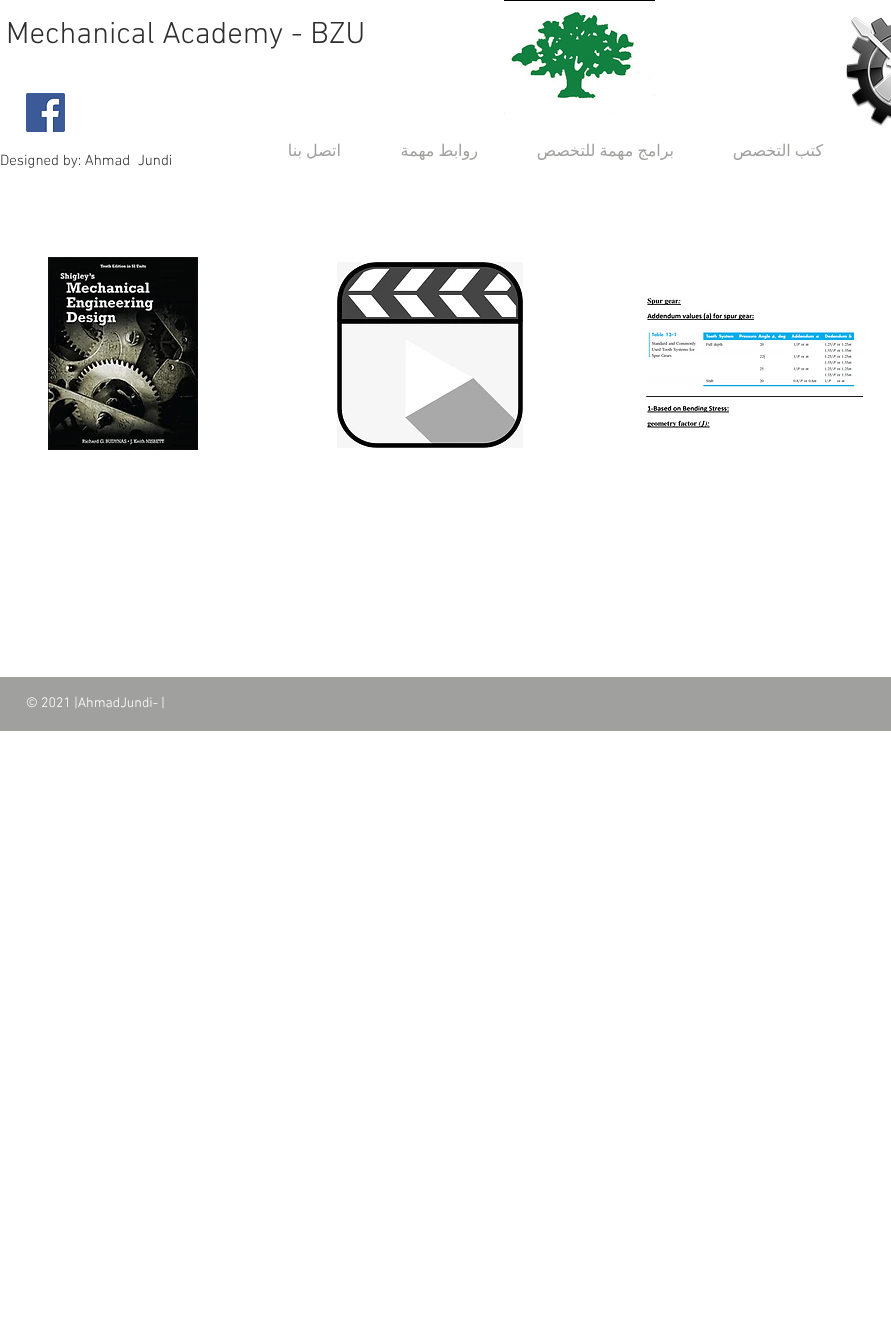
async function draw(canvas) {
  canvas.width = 891;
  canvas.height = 1344;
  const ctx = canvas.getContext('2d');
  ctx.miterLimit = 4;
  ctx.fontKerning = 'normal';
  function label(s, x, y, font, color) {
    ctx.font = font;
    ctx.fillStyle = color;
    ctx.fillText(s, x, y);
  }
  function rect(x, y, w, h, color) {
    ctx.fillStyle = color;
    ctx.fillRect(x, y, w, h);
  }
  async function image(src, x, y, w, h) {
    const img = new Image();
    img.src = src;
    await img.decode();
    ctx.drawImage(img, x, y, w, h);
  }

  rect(0, 0, 891, 1344, '#fff');
  label('Mechanical Academy - BZU', 6, 43, '300 31px "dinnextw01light"', '#2f2e2e');
  await image('assets/img1.png', 504, 0, 151, 114);
  await image('assets/img2.png', 846, 17, 45, 109);
  await image('assets/img3.png', 26, 93, 39, 39);
  label('Designed by: Ahmad  Jundi', 0, 165, '300 15px "dinnextw01light"', '#2f2e2e');
  ctx.wordSpacing = '-1px';
  ctx.direction = 'rtl';
  label('اتصل بنا', 341, 156, '16px DejaVu Sans', '#a0a09f');
  label('روابط مهمة', 478, 156, '16px DejaVu Sans', '#a0a09f');
  label('برامج مهمة للتخصص', 674, 156, '16px DejaVu Sans', '#a0a09f');
  label('كتب التخصص', 823, 156, '16px DejaVu Sans', '#a0a09f');
  await image('assets/img4.png', 48, 257, 150, 193);
  await image('assets/img5.png', 337, 262, 186, 186);
  await image('assets/img6.png', 646, 298, 218, 132);
  rect(0, 677, 891, 54, '#a0a09f');
  ctx.wordSpacing = '0px';
  ctx.direction = 'ltr';
  label('© 2021 |AhmadJundi- |', 26, 707, '300 14px "dinnextw01light"', '#fff');
}

draw(document.querySelector('canvas'));
